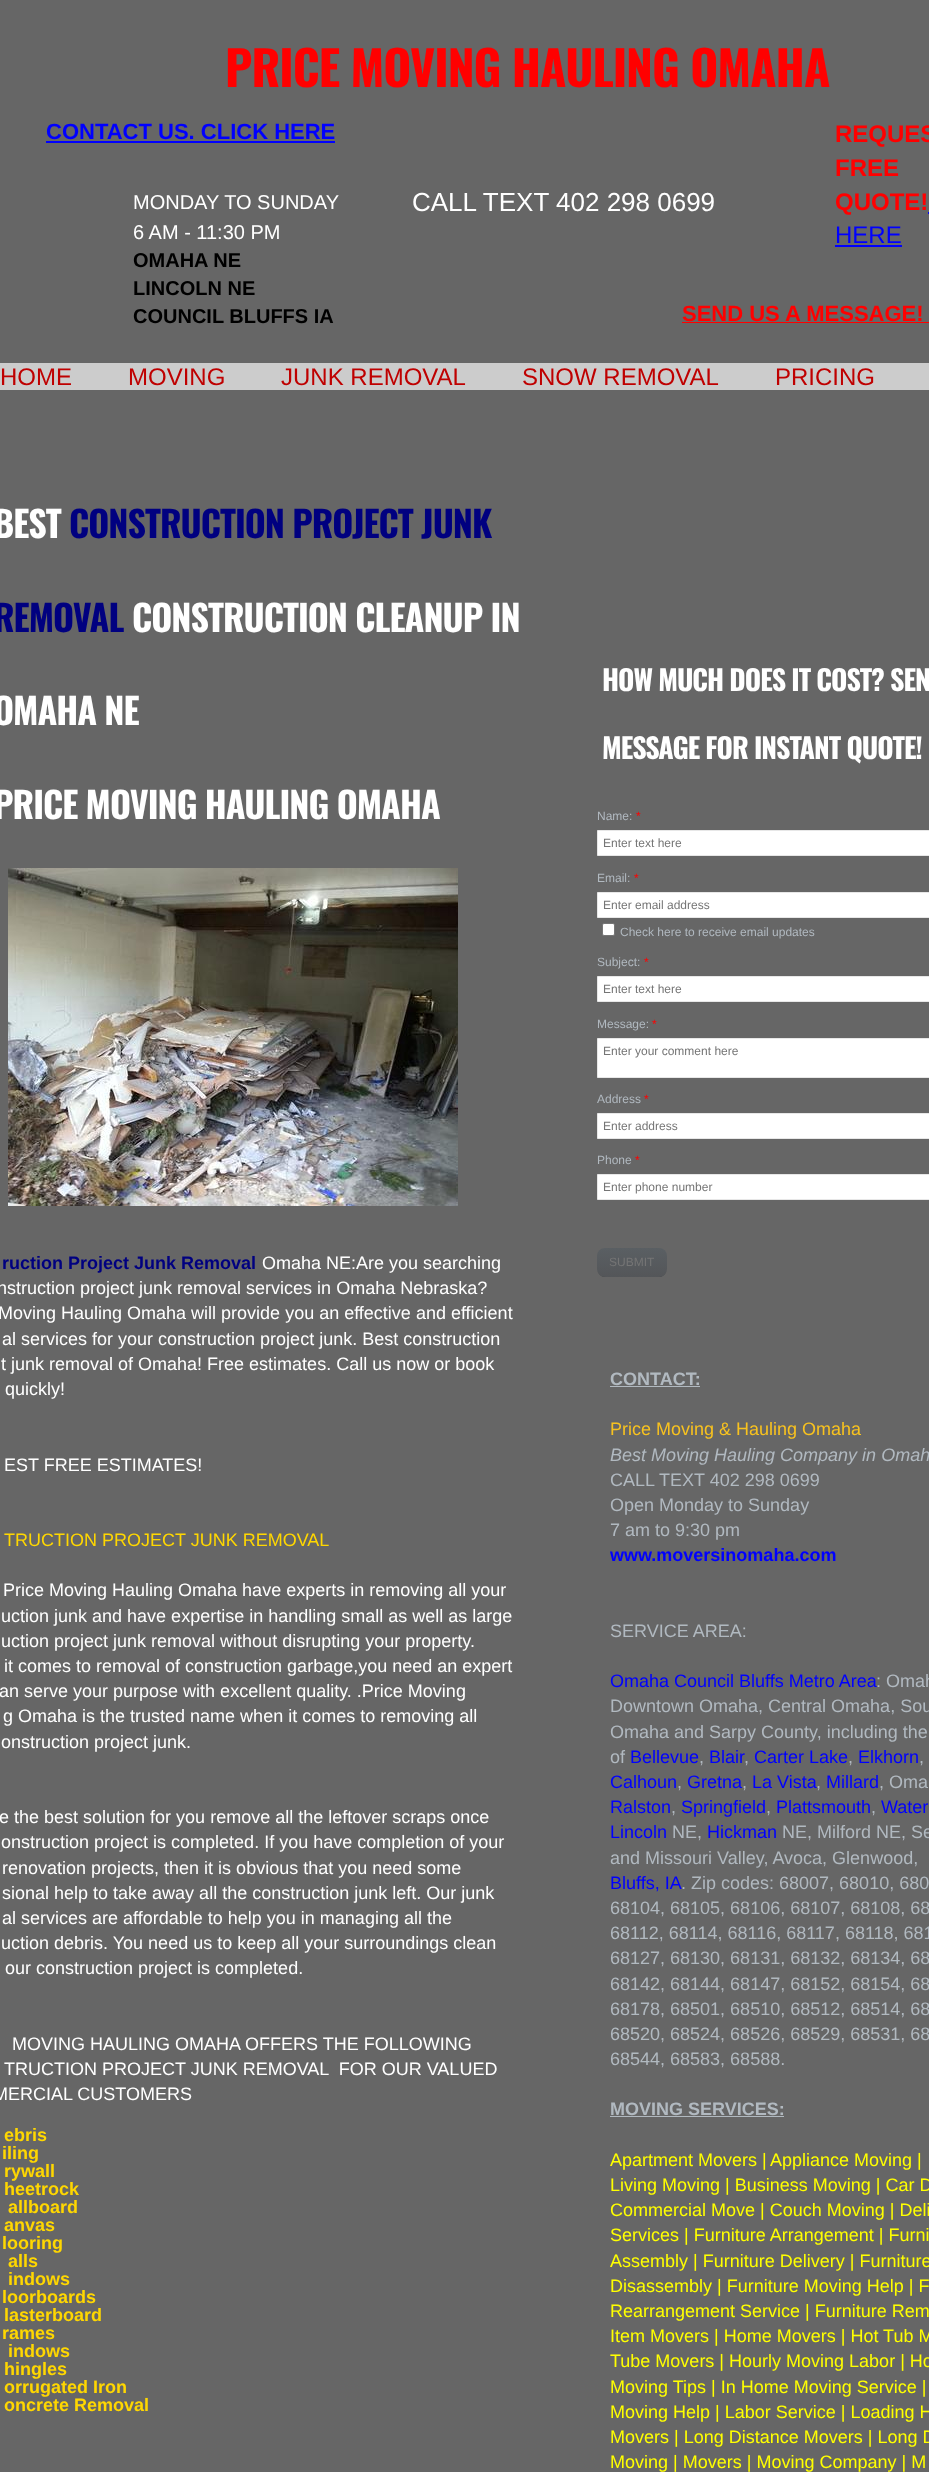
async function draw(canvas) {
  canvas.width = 929;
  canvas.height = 2472;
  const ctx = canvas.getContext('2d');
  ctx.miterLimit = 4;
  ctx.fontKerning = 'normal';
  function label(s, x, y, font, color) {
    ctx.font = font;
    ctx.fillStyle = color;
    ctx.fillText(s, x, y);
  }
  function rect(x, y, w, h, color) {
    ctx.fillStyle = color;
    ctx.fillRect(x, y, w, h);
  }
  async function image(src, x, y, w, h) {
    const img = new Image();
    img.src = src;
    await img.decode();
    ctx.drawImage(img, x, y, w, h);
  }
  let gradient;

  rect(0, 0, 929, 2472, '#666');
  ctx.letterSpacing = '-1px';
  label('PRICE MOVING HAULING OMAHA', 225, 87, 'bold 48px Oswald', '#f00');
  ctx.letterSpacing = '0px';
  label('CONTACT US. CLICK HERE', 46, 139, 'bold 22px Arimo', '#00f');
  rect(46, 141, 289, 2, '#00f');
  label('CALL TEXT 402 298 0699', 412, 211, '26px Arimo', '#fff');
  ctx.wordSpacing = '-1px';
  label('REQUES', 835, 142, 'bold 24px Arimo', '#f00');
  ctx.wordSpacing = '0px';
  label('FREE', 835, 176, 'bold 24px Arimo', '#f00');
  label('QUOTE!', 835, 210, 'bold 24px Arimo', '#f00');
  rect(928, 212, 1, 2, '#00f');
  label('HERE', 835, 243, '24px Arimo', '#00f');
  rect(835, 245, 67, 2, '#00f');
  label('MONDAY TO SUNDAY', 133, 209, '20px Arimo', '#fff');
  label('6 AM - 11:30 PM', 133, 239, '20px Arimo', '#fff');
  label('OMAHA NE', 133, 267, 'bold 20px Arimo', '#000');
  label('LINCOLN NE', 133, 295, 'bold 20px Arimo', '#000');
  label('COUNCIL BLUFFS IA', 133, 323, 'bold 20px Arimo', '#000');
  label('SEND US A MESSAGE!', 682, 321, 'bold 22px Arimo', '#f00');
  rect(682, 322, 247, 1, '#f00');
  rect(0, 363, 929, 27, '#ccc');
  label('HOME', 0, 385, '24px Liberation Sans', '#bf0000');
  label('MOVING', 128, 385, '24px Liberation Sans', '#bf0000');
  label('JUNK REMOVAL', 281, 385, '24px Liberation Sans', '#bf0000');
  label('SNOW REMOVAL', 522, 385, '24px Liberation Sans', '#bf0000');
  label('PRICING', 775, 385, '24px Liberation Sans', '#bf0000');
  ctx.letterSpacing = '-1px';
  label('BEST', -7, 538, 'bold 36px Oswald', '#fff');
  label('CONSTRUCTION PROJECT JUNK', 69, 538, 'bold 36px Oswald', '#000080');
  label('REMOVAL', -7, 632, 'bold 36px Oswald', '#000080');
  label('CONSTRUCTION CLEANUP IN', 132, 632, 'bold 36px Oswald', '#fff');
  label('OMAHA NE', -7, 725, 'bold 36px Oswald', '#fff');
  label('PRICE MOVING HAULING OMAHA', -7, 819, 'bold 36px Oswald', '#fff');
  label('HOW MUCH DOES IT COST? SEN', 602, 691, 'bold 28px Oswald', '#fff');
  label('MESSAGE FOR INSTANT QUOTE!', 602, 759, 'bold 28px Oswald', '#fff');
  ctx.letterSpacing = '0px';
  label('Name:', 597, 820, '12px Arimo', '#b1b9c0');
  label('*', 636, 820, '12px Arimo', '#f00');
  ctx.fillStyle = '#fff';
  ctx.beginPath();
  ctx.rect(597.5, 830.5, 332, 25);
  ctx.fill();
  ctx.strokeStyle = '#e7e7e7';
  ctx.stroke();
  label('Enter text here', 603, 847, '12px Arimo', '#757575');
  await image('assets/img1.png', 8, 868, 450, 338);
  label('Email:', 597, 882, '12px Arimo', '#b1b9c0');
  label('*', 634, 882, '12px Arimo', '#f00');
  ctx.fillStyle = '#fff';
  ctx.beginPath();
  ctx.rect(597.5, 892.5, 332, 25);
  ctx.fill();
  ctx.stroke();
  label('Enter email address', 603, 909, '12px Arimo', '#757575');
  ctx.fillStyle = '#fff';
  ctx.beginPath();
  ctx.roundRect(602.5, 923.5, 12, 12, 1.5);
  ctx.fill();
  ctx.strokeStyle = '#767676';
  ctx.stroke();
  label('Check here to receive email updates', 620, 936, '12px Arimo', '#b1b9c0');
  label('Subject:', 597, 966, '12px Arimo', '#b1b9c0');
  label('*', 644, 966, '12px Arimo', '#f00');
  ctx.fillStyle = '#fff';
  ctx.beginPath();
  ctx.rect(597.5, 976.5, 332, 25);
  ctx.fill();
  ctx.strokeStyle = '#e7e7e7';
  ctx.stroke();
  label('Enter text here', 603, 993, '12px Arimo', '#757575');
  label('Message:', 597, 1028, '12px Arimo', '#b1b9c0');
  label('*', 652, 1028, '12px Arimo', '#f00');
  ctx.fillStyle = '#fff';
  ctx.beginPath();
  ctx.rect(597.5, 1038.5, 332, 39);
  ctx.fill();
  ctx.stroke();
  label('Enter your comment here', 603, 1055, '12px Arimo', '#757575');
  label('Address', 597, 1103, '12px Arimo', '#b1b9c0');
  label('*', 644, 1103, '12px Arimo', '#f00');
  ctx.fillStyle = '#fff';
  ctx.beginPath();
  ctx.rect(597.5, 1113.5, 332, 25);
  ctx.fill();
  ctx.stroke();
  label('Enter address', 603, 1130, '12px Arimo', '#757575');
  label('Phone', 597, 1164, '12px Arimo', '#b1b9c0');
  label('*', 635, 1164, '12px Arimo', '#f00');
  ctx.fillStyle = '#fff';
  ctx.beginPath();
  ctx.rect(597.5, 1174.5, 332, 25);
  ctx.fill();
  ctx.stroke();
  label('Enter phone number', 603, 1191, '12px Arimo', '#757575');
  label('ruction Project Junk Removal', 2, 1269, 'bold 18px Arimo', '#000080');
  label('Omaha NE:Are you searching', 262, 1269, '18px Arimo', '#fff');
  label('nstruction project junk removal services in Omaha Nebraska?', -3, 1294, '18px Arimo', '#fff');
  label('Moving Hauling Omaha will provide you an effective and efficient', -2, 1319, '18px Arimo', '#fff');
  label('al services for your construction project junk. Best construction', 2, 1345, '18px Arimo', '#fff');
  label('t junk removal of Omaha! Free estimates. Call us now or book', 1, 1370, '18px Arimo', '#fff');
  label('quickly!', 5, 1395, '18px Arimo', '#fff');
  label('EST FREE ESTIMATES!', 4, 1471, '18px Arimo', '#fff');
  label('TRUCTION PROJECT JUNK REMOVAL', 4, 1546, '18px Arimo', '#ffd700');
  label('Price Moving Hauling Omaha have experts in removing all your', 3, 1596, '18px Arimo', '#fff');
  label('uction junk and have expertise in handling small as well as large', 1, 1622, '18px Arimo', '#fff');
  label('uction project junk removal without disrupting your property.', 1, 1647, '18px Arimo', '#fff');
  label('it comes to removal of construction garbage,you need an expert', 4, 1672, '18px Arimo', '#fff');
  label('an serve your purpose with excellent quality. .Price Moving', -1, 1697, '18px Arimo', '#fff');
  label('g Omaha is the trusted name when it comes to removing all', 3, 1722, '18px Arimo', '#fff');
  label('onstruction project junk.', 1, 1748, '18px Arimo', '#fff');
  label('e the best solution for you remove all the leftover scraps once', -1, 1823, '18px Arimo', '#fff');
  label('onstruction project is completed. If you have completion of your', 1, 1848, '18px Arimo', '#fff');
  label('renovation projects, then it is obvious that you need some', 2, 1874, '18px Arimo', '#fff');
  label('sional help to take away all the construction junk left. Our junk', 2, 1899, '18px Arimo', '#fff');
  label('al services are affordable to help you in managing all the', 2, 1924, '18px Arimo', '#fff');
  label('uction debris. You need us to keep all your surroundings clean', 1, 1949, '18px Arimo', '#fff');
  label('our construction project is completed.', 5, 1974, '18px Arimo', '#fff');
  label('MOVING HAULING OMAHA OFFERS THE FOLLOWING', 12, 2050, '18px Arimo', '#fff');
  label('TRUCTION PROJECT JUNK REMOVAL  FOR OUR VALUED', 4, 2075, '18px Arimo', '#fff');
  label('MERCIAL CUSTOMERS', -7, 2100, '18px Arimo', '#fff');
  label('ebris', 4, 2141, 'bold 18px Arimo', '#ffd700');
  label('iling', 2, 2159, 'bold 18px Arimo', '#ffd700');
  label('rywall', 4, 2177, 'bold 18px Arimo', '#ffd700');
  label('heetrock', 4, 2195, 'bold 18px Arimo', '#ffd700');
  label('allboard', 8, 2213, 'bold 18px Arimo', '#ffd700');
  label('anvas', 4, 2231, 'bold 18px Arimo', '#ffd700');
  label('looring', 2, 2249, 'bold 18px Arimo', '#ffd700');
  label('alls', 8, 2267, 'bold 18px Arimo', '#ffd700');
  label('indows', 8, 2285, 'bold 18px Arimo', '#ffd700');
  label('loorboards', 2, 2303, 'bold 18px Arimo', '#ffd700');
  label('lasterboard', 4, 2321, 'bold 18px Arimo', '#ffd700');
  label('rames', 2, 2339, 'bold 18px Arimo', '#ffd700');
  label('indows', 8, 2357, 'bold 18px Arimo', '#ffd700');
  label('hingles', 4, 2375, 'bold 18px Arimo', '#ffd700');
  label('orrugated Iron', 4, 2393, 'bold 18px Arimo', '#ffd700');
  label('oncrete Removal', 4, 2411, 'bold 18px Arimo', '#ffd700');
  ctx.fillStyle = '#3d3d3d';
  ctx.filter = 'blur(0.5px)';
  ctx.beginPath();
  ctx.roundRect(598, 1250, 68, 27, 7);
  ctx.fill();
  ctx.filter = 'none';
  gradient = ctx.createLinearGradient(632, 1248, 632, 1277);
  gradient.addColorStop(0, '#5a5f63');
  gradient.addColorStop(1, '#545659');
  ctx.fillStyle = gradient;
  ctx.beginPath();
  ctx.roundRect(597, 1248, 70, 29, 8);
  ctx.fill();
  label('SUBMIT', 609, 1266, '12px Arimo', '#757575');
  label('CONTACT:', 610, 1385, 'bold 18px Arimo', '#b1b9c0');
  rect(610, 1386, 90, 1, '#b1b9c0');
  label('Price Moving & Hauling Omaha', 610, 1435, '18px Arimo', '#f8c21f');
  label('Best Moving Hauling Company in Omah', 610, 1461, 'italic 18px Arimo', '#b1b9c0');
  label('CALL TEXT 402 298 0699', 610, 1486, '18px Arimo', '#b1b9c0');
  label('Open Monday to Sunday', 610, 1511, '18px Arimo', '#b1b9c0');
  label('7 am to 9:30 pm', 610, 1536, '18px Arimo', '#b1b9c0');
  label('www.moversinomaha.com', 610, 1561, 'bold 18px Arimo', '#00f');
  label('SERVICE AREA:', 610, 1637, '18px Arimo', '#b1b9c0');
  label('Omaha Council Bluffs Metro Area', 610, 1687, '18px Arimo', '#00f');
  label(': Omah', 876, 1687, '18px Arimo', '#b1b9c0');
  label('Downtown Omaha, Central Omaha, Sou', 610, 1712, '18px Arimo', '#b1b9c0');
  label('Omaha and Sarpy County, including the', 610, 1738, '18px Arimo', '#b1b9c0');
  label('of', 610, 1763, '18px Arimo', '#b1b9c0');
  label('Bellevue', 630, 1763, '18px Arimo', '#00f');
  label(',', 699, 1763, '18px Arimo', '#b1b9c0');
  label('Blair', 709, 1763, '18px Arimo', '#00f');
  label(',', 744, 1763, '18px Arimo', '#b1b9c0');
  label('Carter Lake', 754, 1763, '18px Arimo', '#00f');
  label(',', 848, 1763, '18px Arimo', '#b1b9c0');
  label('Elkhorn', 858, 1763, '18px Arimo', '#00f');
  label(',', 919, 1763, '18px Arimo', '#b1b9c0');
  label('Calhoun', 610, 1788, '18px Arimo', '#00f');
  label(',', 677, 1788, '18px Arimo', '#b1b9c0');
  label('Gretna', 687, 1788, '18px Arimo', '#00f');
  label(',', 742, 1788, '18px Arimo', '#b1b9c0');
  label('La Vista', 752, 1788, '18px Arimo', '#00f');
  label(',', 816, 1788, '18px Arimo', '#b1b9c0');
  label('Millard', 826, 1788, '18px Arimo', '#00f');
  label(', Oma', 879, 1788, '18px Arimo', '#b1b9c0');
  label('Ralston', 610, 1813, '18px Arimo', '#00f');
  label(',', 671, 1813, '18px Arimo', '#b1b9c0');
  label('Springfield', 681, 1813, '18px Arimo', '#00f');
  label(',', 766, 1813, '18px Arimo', '#b1b9c0');
  label('Plattsmouth', 776, 1813, '18px Arimo', '#00f');
  label(',', 871, 1813, '18px Arimo', '#b1b9c0');
  label('Water', 881, 1813, '18px Arimo', '#00f');
  label('Lincoln', 610, 1838, '18px Arimo', '#00f');
  label('NE,', 672, 1838, '18px Arimo', '#b1b9c0');
  label('Hickman', 707, 1838, '18px Arimo', '#00f');
  label('NE, Milford NE, Se', 782, 1838, '18px Arimo', '#b1b9c0');
  label('and Missouri Valley, Avoca, Glenwood,', 610, 1864, '18px Arimo', '#b1b9c0');
  label('Bluffs, IA', 610, 1889, '18px Arimo', '#00f');
  label('. Zip codes: 68007, 68010, 680', 681, 1889, '18px Arimo', '#b1b9c0');
  label('68104, 68105, 68106, 68107, 68108, 68', 610, 1914, '18px Arimo', '#b1b9c0');
  label('68112, 68114, 68116, 68117, 68118, 681', 610, 1939, '18px Arimo', '#b1b9c0');
  label('68127, 68130, 68131, 68132, 68134, 68', 610, 1964, '18px Arimo', '#b1b9c0');
  label('68142, 68144, 68147, 68152, 68154, 68', 610, 1990, '18px Arimo', '#b1b9c0');
  label('68178, 68501, 68510, 68512, 68514, 68', 610, 2015, '18px Arimo', '#b1b9c0');
  label('68520, 68524, 68526, 68529, 68531, 68', 610, 2040, '18px Arimo', '#b1b9c0');
  label('68544, 68583, 68588.', 610, 2065, '18px Arimo', '#b1b9c0');
  label('MOVING SERVICES:', 610, 2115, 'bold 18px Arimo', '#b1b9c0');
  rect(610, 2116, 174, 1, '#b1b9c0');
  label('Apartment Movers |', 610, 2166, '18px Arimo', '#ff0');
  label('Appliance Moving', 770, 2166, '18px Arimo', '#ff0');
  label('|', 917, 2166, '18px Arimo', '#ff0');
  label('Living Moving | Business Moving | Car D', 610, 2191, '18px Arimo', '#ff0');
  label('Commercial Move | Couch Moving | Deli', 610, 2216, '18px Arimo', '#ff0');
  label('Services | Furniture Arrangement | Furni', 610, 2241, '18px Arimo', '#ff0');
  label('Assembly | Furniture Delivery | Furniture', 610, 2267, '18px Arimo', '#ff0');
  label('Disassembly | Furniture Moving Help | F', 610, 2292, '18px Arimo', '#ff0');
  label('Rearrangement Service | Furniture Rem', 610, 2317, '18px Arimo', '#ff0');
  label('Item Movers | Home Movers | Hot Tub M', 610, 2342, '18px Arimo', '#ff0');
  label('Tube Movers | Hourly Moving Labor | Ho', 610, 2367, '18px Arimo', '#ff0');
  label('Moving Tips | In Home Moving Service |', 610, 2393, '18px Arimo', '#ff0');
  label('Moving Help | Labor Service | Loading H', 610, 2418, '18px Arimo', '#ff0');
  label('Movers | Long Distance Movers | Long D', 610, 2443, '18px Arimo', '#ff0');
  label('Moving | Movers | Moving Company | M', 610, 2468, '18px Arimo', '#ff0');
}

draw(document.querySelector('canvas'));
